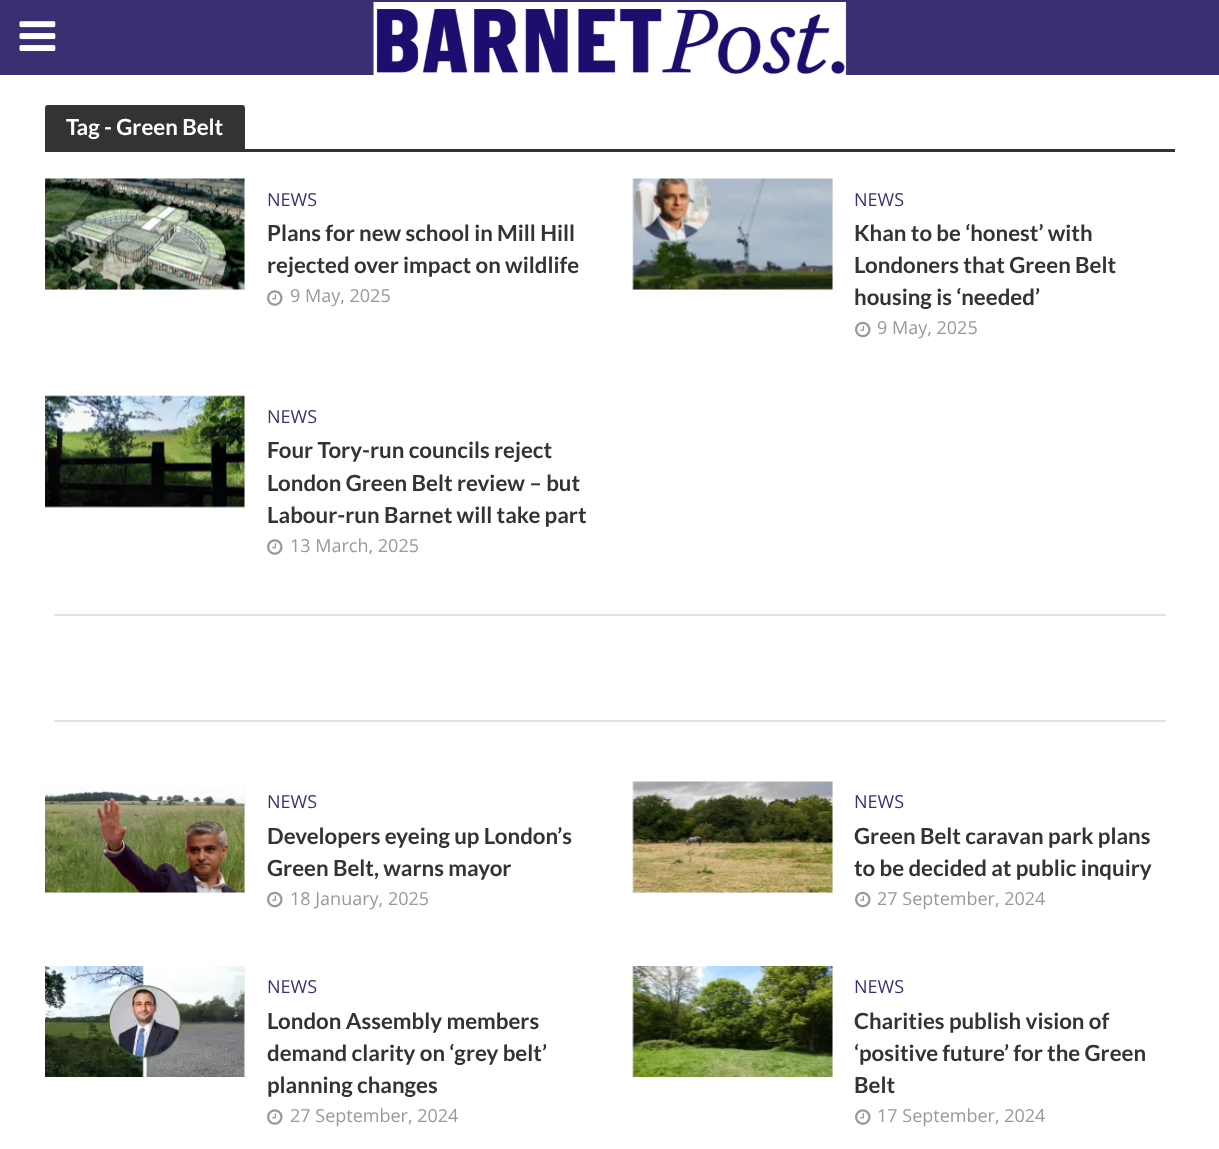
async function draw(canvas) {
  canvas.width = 1219;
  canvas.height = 1149;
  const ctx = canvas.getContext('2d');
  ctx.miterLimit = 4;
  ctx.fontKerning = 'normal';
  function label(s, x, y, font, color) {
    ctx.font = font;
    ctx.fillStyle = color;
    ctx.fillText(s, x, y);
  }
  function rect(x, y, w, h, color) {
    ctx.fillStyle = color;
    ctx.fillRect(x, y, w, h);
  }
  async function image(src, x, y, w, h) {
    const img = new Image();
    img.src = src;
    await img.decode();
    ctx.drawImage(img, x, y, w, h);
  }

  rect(0, 0, 1219, 1149, '#fff');
  rect(0, 0, 1219, 75, '#3b2f74');
  await image('assets/img1.png', 19, 21, 37, 30);
  await image('assets/img2.png', 373, 2, 474, 73);
  ctx.fillStyle = '#333';
  ctx.beginPath();
  ctx.roundRect(45, 105, 200, 44, [3, 3, 0, 0]);
  ctx.fill();
  label('Tag - Green Belt', 66, 135, 'bold 22.25px Lato', '#fff');
  rect(45, 149, 1130, 3, '#333');
  rect(45, 179, 200, 111, '#f2f2f2');
  await image('assets/img3.png', 45, 178, 200, 112);
  label('NEWS', 267, 206, '18px Open Sans', '#3b2f74');
  label('Plans for new school in Mill Hill', 267, 241, 'bold 22.25px Lato', '#333');
  label('rejected over impact on wildlife', 267, 273, 'bold 22.25px Lato', '#333');
  await image('assets/img4.png', 267, 290, 16, 16);
  label('9 May, 2025', 290, 302, '18px Open Sans', '#999');
  rect(633, 179, 200, 111, '#f2f2f2');
  await image('assets/img5.png', 632, 178, 201, 112);
  label('NEWS', 854, 206, '18px Open Sans', '#3b2f74');
  label('Khan to be ‘honest’ with', 854, 241, 'bold 22.25px Lato', '#333');
  label('Londoners that Green Belt', 854, 273, 'bold 22.25px Lato', '#333');
  label('housing is ‘needed’', 854, 305, 'bold 22.25px Lato', '#333');
  await image('assets/img6.png', 855, 321, 16, 17);
  label('9 May, 2025', 877, 334, '18px Open Sans', '#999');
  rect(45, 396, 200, 111, '#f2f2f2');
  await image('assets/img7.png', 45, 395, 200, 113);
  label('NEWS', 267, 423, '18px Open Sans', '#3b2f74');
  label('Four Tory-run councils reject', 267, 458, 'bold 22.25px Lato', '#333');
  label('London Green Belt review – but', 267, 491, 'bold 22.25px Lato', '#333');
  label('Labour-run Barnet will take part', 267, 523, 'bold 22.25px Lato', '#333');
  await image('assets/img4.png', 267, 539, 16, 16);
  label('13 March, 2025', 290, 552, '18px Open Sans', '#999');
  rect(54, 614, 1112, 2, '#e3e3e3');
  rect(54, 720, 1112, 2, '#e3e3e3');
  rect(45, 782, 200, 111, '#f2f2f2');
  await image('assets/img8.png', 45, 782, 200, 111);
  label('NEWS', 267, 808, '18px Open Sans', '#3b2f74');
  label('Developers eyeing up London’s', 267, 844, 'bold 22.25px Lato', '#333');
  label('Green Belt, warns mayor', 267, 876, 'bold 22.25px Lato', '#333');
  await image('assets/img6.png', 267, 891, 16, 17);
  label('18 January, 2025', 290, 905, '18px Open Sans', '#999');
  rect(633, 782, 200, 111, '#f2f2f2');
  await image('assets/img9.png', 632, 781, 201, 112);
  label('NEWS', 854, 808, '18px Open Sans', '#3b2f74');
  label('Green Belt caravan park plans', 854, 844, 'bold 22.25px Lato', '#333');
  label('to be decided at public inquiry', 854, 876, 'bold 22.25px Lato', '#333');
  await image('assets/img6.png', 855, 891, 16, 17);
  label('27 September, 2024', 877, 905, '18px Open Sans', '#999');
  rect(244, 966, 1, 111, '#f2f2f2');
  await image('assets/img10.png', 45, 966, 200, 111);
  label('NEWS', 267, 993, '18px Open Sans', '#3b2f74');
  label('London Assembly members', 267, 1029, 'bold 22.25px Lato', '#333');
  label('demand clarity on ‘grey belt’', 267, 1061, 'bold 22.25px Lato', '#333');
  label('planning changes', 267, 1093, 'bold 22.25px Lato', '#333');
  await image('assets/img4.png', 267, 1109, 16, 16);
  label('27 September, 2024', 290, 1122, '18px Open Sans', '#999');
  rect(633, 966, 200, 111, '#f2f2f2');
  await image('assets/img11.png', 632, 966, 201, 111);
  label('NEWS', 854, 993, '18px Open Sans', '#3b2f74');
  label('Charities publish vision of', 854, 1029, 'bold 22.25px Lato', '#333');
  label('‘positive future’ for the Green', 854, 1061, 'bold 22.25px Lato', '#333');
  label('Belt', 854, 1093, 'bold 22.25px Lato', '#333');
  await image('assets/img4.png', 855, 1109, 16, 16);
  label('17 September, 2024', 877, 1122, '18px Open Sans', '#999');
}

draw(document.querySelector('canvas'));
